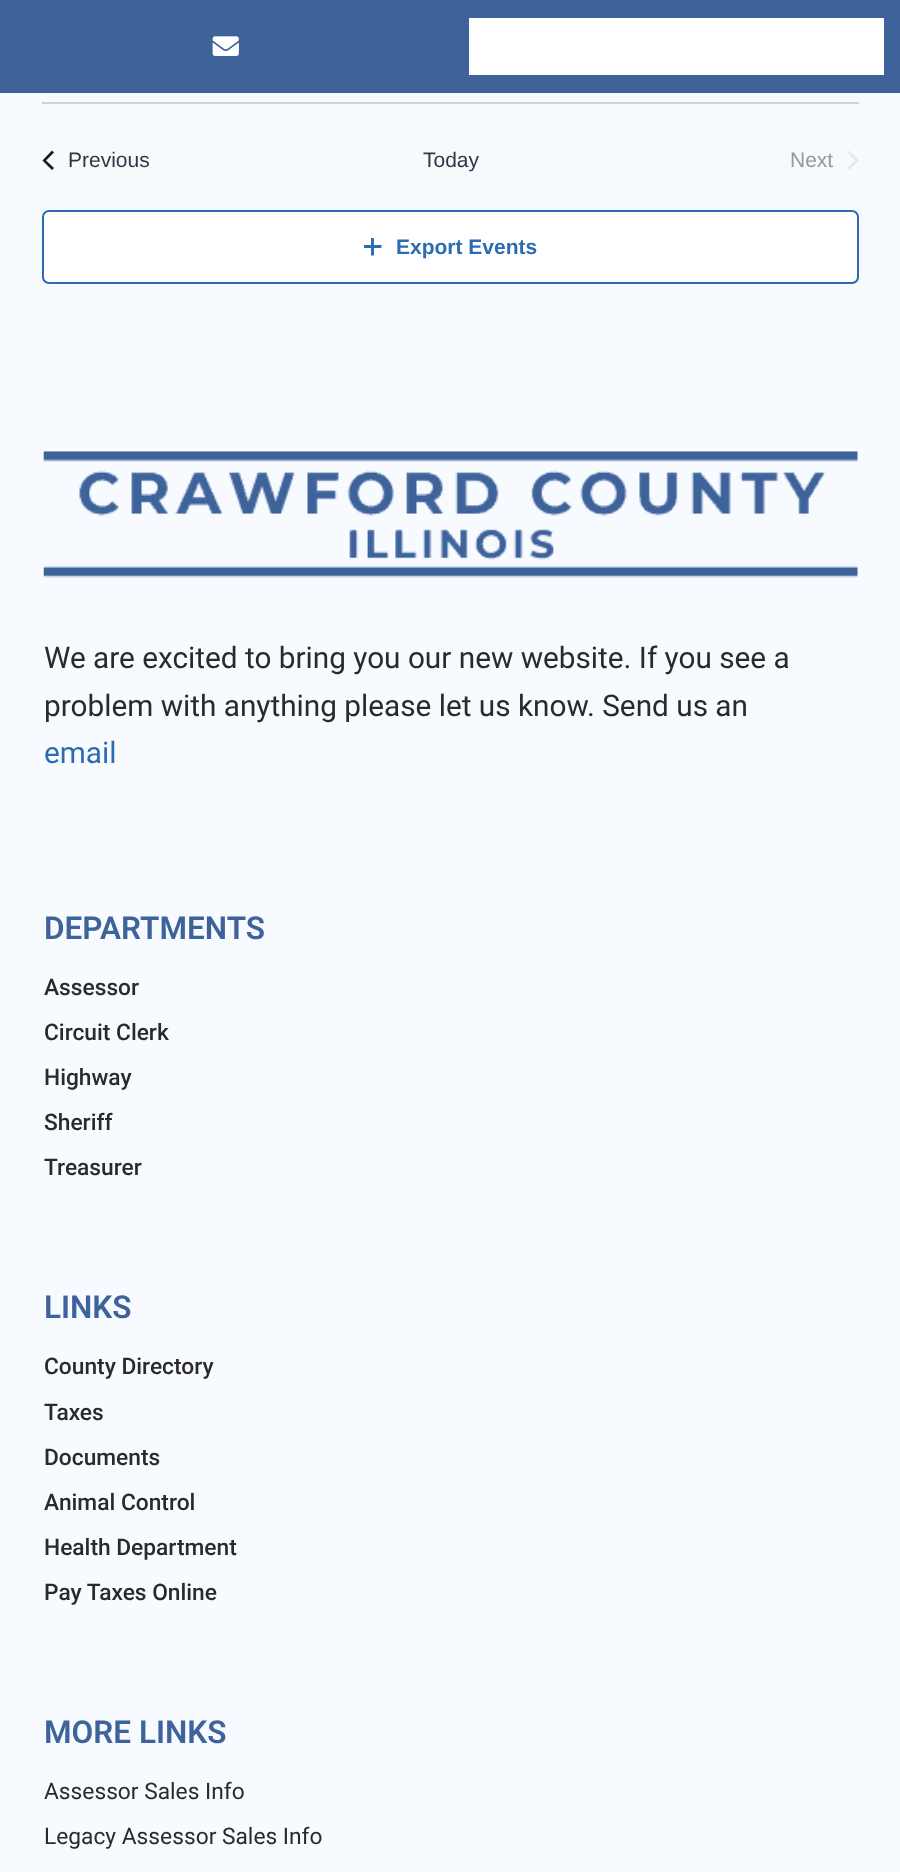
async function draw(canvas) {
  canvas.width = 900;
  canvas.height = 1872;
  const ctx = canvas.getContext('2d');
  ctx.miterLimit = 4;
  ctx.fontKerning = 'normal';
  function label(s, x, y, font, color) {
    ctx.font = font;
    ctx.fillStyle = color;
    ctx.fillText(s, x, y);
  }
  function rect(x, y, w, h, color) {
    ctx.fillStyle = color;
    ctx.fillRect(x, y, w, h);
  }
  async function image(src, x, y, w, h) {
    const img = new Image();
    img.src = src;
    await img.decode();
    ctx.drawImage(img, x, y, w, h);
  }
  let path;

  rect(0, 0, 900, 1872, '#f7fafc');
  rect(0, 0, 900, 93, '#3e639b');
  await image('assets/img1.png', 212, 36, 27, 20);
  rect(469, 18, 415, 57, '#fff');
  rect(42, 102, 817, 2, '#cbd5e0');
  ctx.fillStyle = '#141827';
  path = new Path2D('M54 168L52 170L42.5 160.5L52 150.5L54 152.5L46 160.5Z');
  ctx.fill(path);
  label('Previous', 68, 167, '21px Liberation Sans', '#2d3748');
  label('Today', 423, 167, '21px Liberation Sans', '#2d3748');
  label('Next', 790, 167, '21px Liberation Sans', '#9299a2');
  ctx.fillStyle = '#e6e8e9';
  path = new Path2D('M847.5 152.5L849 150.5L859 160.5L849 170L847.5 168L855 160.5Z');
  ctx.fill(path);
  ctx.fillStyle = '#fff';
  ctx.beginPath();
  ctx.roundRect(43, 211, 815, 72, 6);
  ctx.fill();
  ctx.strokeStyle = '#2b6cb0';
  ctx.lineWidth = 2;
  ctx.stroke();
  path = new Path2D('M380 246.5H365.5M372.5 239.5V254');
  ctx.lineWidth = 2.9;
  ctx.lineCap = 'square';
  ctx.stroke(path);
  label('Export Events', 396, 254, 'bold 21px Liberation Sans', '#2b6cb0');
  rect(0, 340, 900, 1532, '#f7faff');
  await image('assets/img2.png', 43, 451, 815, 127);
  label('We are excited to bring you our new website. If you see a', 44, 668, '29.75px Roboto', '#2a2a2a');
  label('problem with anything please let us know. Send us an', 44, 716, '29.75px Roboto', '#2a2a2a');
  label('email', 44, 763, '29.75px Roboto', '#2b6cb0');
  label('DEPARTMENTS', 44, 939, '600 31.5px Roboto', '#3e639b');
  label('Assessor', 44, 995, '500 22.75px Roboto', '#2a2a2a');
  label('Circuit Clerk', 44, 1040, '500 22.75px Roboto', '#2a2a2a');
  label('Highway', 44, 1085, '500 22.75px Roboto', '#2a2a2a');
  label('Sheriff', 44, 1130, '500 22.75px Roboto', '#2a2a2a');
  label('Treasurer', 44, 1175, '500 22.75px Roboto', '#2a2a2a');
  label('LINKS', 44, 1318, '600 31.5px Roboto', '#3e639b');
  label('County Directory', 44, 1374, '500 22.75px Roboto', '#2a2a2a');
  label('Taxes', 44, 1420, '500 22.75px Roboto', '#2a2a2a');
  label('Documents', 44, 1465, '500 22.75px Roboto', '#2a2a2a');
  label('Animal Control', 44, 1510, '500 22.75px Roboto', '#2a2a2a');
  label('Health Department', 44, 1555, '500 22.75px Roboto', '#2a2a2a');
  label('Pay Taxes Online', 44, 1600, '500 22.75px Roboto', '#2a2a2a');
  label('MORE LINKS', 44, 1743, '600 31.5px Roboto', '#3e639b');
  label('Assessor Sales Info', 44, 1799, '22.75px Roboto', '#2a2a2a');
  label('Legacy Assessor Sales Info', 44, 1844, '22.75px Roboto', '#2a2a2a');
}

draw(document.querySelector('canvas'));
